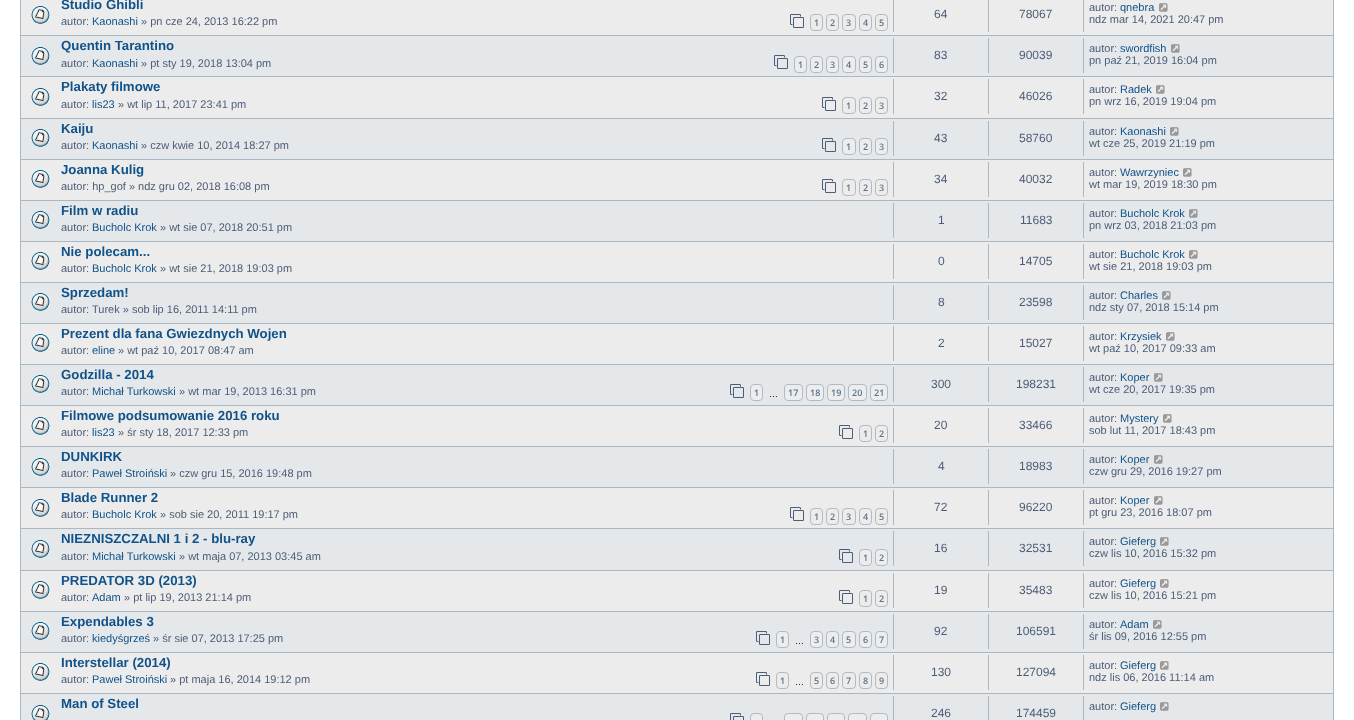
async function draw(canvas) {
  canvas.width = 1354;
  canvas.height = 720;
  const ctx = canvas.getContext('2d');
  ctx.miterLimit = 4;
  ctx.fontKerning = 'normal';
  function label(s, x, y, font, color) {
    ctx.font = font;
    ctx.fillStyle = color;
    ctx.fillText(s, x, y);
  }
  function rect(x, y, w, h, color) {
    ctx.fillStyle = color;
    ctx.fillRect(x, y, w, h);
  }
  async function image(src, x, y, w, h) {
    const img = new Image();
    img.src = src;
    await img.decode();
    ctx.drawImage(img, x, y, w, h);
  }

  rect(0, 0, 1354, 720, '#fff');
  rect(21, 0, 1312, 693, '#ececec');
  ctx.strokeStyle = '#a9b8c2';
  ctx.strokeRect(20.5, -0.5, 1313, 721);
  await image('assets/img1.png', 31, 6, 19, 18);
  label('Studio Ghibli', 61, 9, 'bold 13.25px Liberation Sans', '#105289');
  label('autor:', 61, 25, '11px Liberation Sans', '#4c5d77');
  label('Kaonashi', 92, 25, '11px Liberation Sans', '#105289');
  label('» pn cze 24, 2013 16:22 pm', 141, 25, '11px Liberation Sans', '#4c5d77');
  await image('assets/img2.png', 790, 14, 14, 14);
  ctx.beginPath();
  ctx.roundRect(810.5, 14.5, 12, 16, 3.5);
  ctx.strokeStyle = '#b4bac0';
  ctx.stroke();
  label('1', 814, 26, '600 9px Open Sans', '#5c758c');
  ctx.beginPath();
  ctx.roundRect(826.5, 14.5, 12, 16, 3.5);
  ctx.stroke();
  label('2', 830, 26, '600 9px Open Sans', '#5c758c');
  ctx.beginPath();
  ctx.roundRect(842.5, 14.5, 13, 16, 3.5);
  ctx.stroke();
  label('3', 846, 26, '600 9px Open Sans', '#5c758c');
  ctx.beginPath();
  ctx.roundRect(859.5, 14.5, 12, 16, 3.5);
  ctx.stroke();
  label('4', 863, 26, '600 9px Open Sans', '#5c758c');
  ctx.beginPath();
  ctx.roundRect(875.5, 14.5, 12, 16, 3.5);
  ctx.stroke();
  label('5', 879, 26, '600 9px Open Sans', '#5c758c');
  rect(893, 0, 1, 32, '#a9b8c2');
  label('64', 934, 18, '12px Liberation Sans', '#4c5d77');
  rect(988, 0, 1, 32, '#a9b8c2');
  label('78067', 1019, 18, '12px Liberation Sans', '#4c5d77');
  rect(1083, 0, 1, 32, '#a9b8c2');
  label('autor:', 1089, 11, '11px Liberation Sans', '#4c5d77');
  label('qnebra', 1120, 11, '11px Liberation Sans', '#105289');
  await image('assets/img3.png', 1159, 3, 9, 9);
  label('ndz mar 14, 2021 20:47 pm', 1089, 23, '11px Liberation Sans', '#4c5d77');
  rect(21, 36, 1312, 40, '#e5e8ea');
  rect(21, 35, 1312, 1, '#a9b8c2');
  await image('assets/img4.png', 31, 47, 19, 18);
  label('Quentin Tarantino', 61, 50, 'bold 13.25px Liberation Sans', '#105289');
  label('autor:', 61, 67, '11px Liberation Sans', '#4c5d77');
  label('Kaonashi', 92, 67, '11px Liberation Sans', '#105289');
  label('» pt sty 19, 2018 13:04 pm', 141, 67, '11px Liberation Sans', '#4c5d77');
  await image('assets/img5.png', 774, 55, 14, 14);
  ctx.fillStyle = '#ecedee';
  ctx.beginPath();
  ctx.roundRect(794.5, 56.5, 12, 16, 3.5);
  ctx.fill();
  ctx.stroke();
  label('1', 798, 68, '600 9px Open Sans', '#5c758c');
  ctx.fillStyle = '#ecedee';
  ctx.beginPath();
  ctx.roundRect(810.5, 56.5, 12, 16, 3.5);
  ctx.fill();
  ctx.stroke();
  label('2', 814, 68, '600 9px Open Sans', '#5c758c');
  ctx.fillStyle = '#ecedee';
  ctx.beginPath();
  ctx.roundRect(826.5, 56.5, 12, 16, 3.5);
  ctx.fill();
  ctx.stroke();
  label('3', 830, 68, '600 9px Open Sans', '#5c758c');
  ctx.fillStyle = '#ecedee';
  ctx.beginPath();
  ctx.roundRect(842.5, 56.5, 13, 16, 3.5);
  ctx.fill();
  ctx.stroke();
  label('4', 846, 68, '600 9px Open Sans', '#5c758c');
  ctx.fillStyle = '#ecedee';
  ctx.beginPath();
  ctx.roundRect(859.5, 56.5, 12, 16, 3.5);
  ctx.fill();
  ctx.stroke();
  label('5', 863, 68, '600 9px Open Sans', '#5c758c');
  ctx.fillStyle = '#ecedee';
  ctx.beginPath();
  ctx.roundRect(875.5, 56.5, 12, 16, 3.5);
  ctx.fill();
  ctx.stroke();
  label('6', 879, 68, '600 9px Open Sans', '#5c758c');
  rect(893, 38, 1, 35, '#a9b8c2');
  label('83', 934, 59, '12px Liberation Sans', '#4c5d77');
  rect(988, 38, 1, 35, '#a9b8c2');
  label('90039', 1019, 59, '12px Liberation Sans', '#4c5d77');
  rect(1083, 38, 1, 35, '#a9b8c2');
  label('autor:', 1089, 52, '11px Liberation Sans', '#4c5d77');
  label('swordfish', 1120, 52, '11px Liberation Sans', '#105289');
  await image('assets/img6.png', 1171, 44, 9, 9);
  label('pn paź 21, 2019 16:04 pm', 1089, 64, '11px Liberation Sans', '#4c5d77');
  rect(21, 76, 1312, 1, '#a9b8c2');
  await image('assets/img1.png', 31, 88, 19, 18);
  label('Plakaty filmowe', 61, 91, 'bold 13.25px Liberation Sans', '#105289');
  label('autor:', 61, 108, '11px Liberation Sans', '#4c5d77');
  label('lis23', 92, 108, '11px Liberation Sans', '#105289');
  label('» wt lip 11, 2017 23:41 pm', 118, 108, '11px Liberation Sans', '#4c5d77');
  await image('assets/img2.png', 822, 97, 14, 14);
  ctx.beginPath();
  ctx.roundRect(842.5, 97.5, 13, 16, 3.5);
  ctx.stroke();
  label('1', 846, 109, '600 9px Open Sans', '#5c758c');
  ctx.beginPath();
  ctx.roundRect(859.5, 97.5, 12, 16, 3.5);
  ctx.stroke();
  label('2', 863, 109, '600 9px Open Sans', '#5c758c');
  ctx.beginPath();
  ctx.roundRect(875.5, 97.5, 12, 16, 3.5);
  ctx.stroke();
  label('3', 879, 109, '600 9px Open Sans', '#5c758c');
  rect(893, 79, 1, 35, '#a9b8c2');
  label('32', 934, 100, '12px Liberation Sans', '#4c5d77');
  rect(988, 79, 1, 35, '#a9b8c2');
  label('46026', 1019, 100, '12px Liberation Sans', '#4c5d77');
  rect(1083, 79, 1, 35, '#a9b8c2');
  label('autor:', 1089, 93, '11px Liberation Sans', '#4c5d77');
  label('Radek', 1120, 93, '11px Liberation Sans', '#105289');
  await image('assets/img3.png', 1156, 85, 9, 9);
  label('pn wrz 16, 2019 19:04 pm', 1089, 105, '11px Liberation Sans', '#4c5d77');
  rect(21, 119, 1312, 40, '#e5e8ea');
  rect(21, 118, 1312, 1, '#a9b8c2');
  await image('assets/img4.png', 31, 129, 19, 18);
  label('Kaiju', 61, 133, 'bold 13.25px Liberation Sans', '#105289');
  label('autor:', 61, 149, '11px Liberation Sans', '#4c5d77');
  label('Kaonashi', 92, 149, '11px Liberation Sans', '#105289');
  label('» czw kwie 10, 2014 18:27 pm', 141, 149, '11px Liberation Sans', '#4c5d77');
  await image('assets/img5.png', 822, 138, 14, 14);
  ctx.fillStyle = '#ecedee';
  ctx.beginPath();
  ctx.roundRect(842.5, 138.5, 13, 16, 3.5);
  ctx.fill();
  ctx.stroke();
  label('1', 846, 150, '600 9px Open Sans', '#5c758c');
  ctx.fillStyle = '#ecedee';
  ctx.beginPath();
  ctx.roundRect(859.5, 138.5, 12, 16, 3.5);
  ctx.fill();
  ctx.stroke();
  label('2', 863, 150, '600 9px Open Sans', '#5c758c');
  ctx.fillStyle = '#ecedee';
  ctx.beginPath();
  ctx.roundRect(875.5, 138.5, 12, 16, 3.5);
  ctx.fill();
  ctx.stroke();
  label('3', 879, 150, '600 9px Open Sans', '#5c758c');
  rect(893, 121, 1, 35, '#a9b8c2');
  label('43', 934, 142, '12px Liberation Sans', '#4c5d77');
  rect(988, 121, 1, 35, '#a9b8c2');
  label('58760', 1019, 142, '12px Liberation Sans', '#4c5d77');
  rect(1083, 121, 1, 35, '#a9b8c2');
  label('autor:', 1089, 135, '11px Liberation Sans', '#4c5d77');
  label('Kaonashi', 1120, 135, '11px Liberation Sans', '#105289');
  await image('assets/img6.png', 1170, 127, 9, 9);
  label('wt cze 25, 2019 21:19 pm', 1089, 147, '11px Liberation Sans', '#4c5d77');
  rect(21, 159, 1312, 1, '#a9b8c2');
  await image('assets/img1.png', 31, 170, 19, 18);
  label('Joanna Kulig', 61, 174, 'bold 13.25px Liberation Sans', '#105289');
  label('autor: hp_gof » ndz gru 02, 2018 16:08 pm', 61, 190, '11px Liberation Sans', '#4c5d77');
  await image('assets/img2.png', 822, 179, 14, 14);
  ctx.beginPath();
  ctx.roundRect(842.5, 179.5, 13, 16, 3.5);
  ctx.stroke();
  label('1', 846, 191, '600 9px Open Sans', '#5c758c');
  ctx.beginPath();
  ctx.roundRect(859.5, 179.5, 12, 16, 3.5);
  ctx.stroke();
  label('2', 863, 191, '600 9px Open Sans', '#5c758c');
  ctx.beginPath();
  ctx.roundRect(875.5, 179.5, 12, 16, 3.5);
  ctx.stroke();
  label('3', 879, 191, '600 9px Open Sans', '#5c758c');
  rect(893, 162, 1, 35, '#a9b8c2');
  label('34', 934, 183, '12px Liberation Sans', '#4c5d77');
  rect(988, 162, 1, 35, '#a9b8c2');
  label('40032', 1019, 183, '12px Liberation Sans', '#4c5d77');
  rect(1083, 162, 1, 35, '#a9b8c2');
  label('autor:', 1089, 176, '11px Liberation Sans', '#4c5d77');
  label('Wawrzyniec', 1120, 176, '11px Liberation Sans', '#105289');
  await image('assets/img3.png', 1183, 168, 9, 9);
  label('wt mar 19, 2019 18:30 pm', 1089, 188, '11px Liberation Sans', '#4c5d77');
  rect(21, 201, 1312, 40, '#e5e8ea');
  rect(21, 200, 1312, 1, '#a9b8c2');
  await image('assets/img7.png', 31, 211, 19, 18);
  label('Film w radiu', 61, 215, 'bold 13.25px Liberation Sans', '#105289');
  label('autor:', 61, 231, '11px Liberation Sans', '#4c5d77');
  label('Bucholc Krok', 92, 231, '11px Liberation Sans', '#105289');
  label('» wt sie 07, 2018 20:51 pm', 160, 231, '11px Liberation Sans', '#4c5d77');
  rect(893, 203, 1, 35, '#a9b8c2');
  label('1', 938, 224, '12px Liberation Sans', '#4c5d77');
  rect(988, 203, 1, 35, '#a9b8c2');
  label('11683', 1020, 224, '12px Liberation Sans', '#4c5d77');
  rect(1083, 203, 1, 35, '#a9b8c2');
  label('autor:', 1089, 217, '11px Liberation Sans', '#4c5d77');
  label('Bucholc Krok', 1120, 217, '11px Liberation Sans', '#105289');
  await image('assets/img6.png', 1189, 209, 9, 9);
  label('pn wrz 03, 2018 21:03 pm', 1089, 229, '11px Liberation Sans', '#4c5d77');
  rect(21, 241, 1312, 1, '#a9b8c2');
  await image('assets/img8.png', 31, 252, 19, 18);
  label('Nie polecam...', 61, 256, 'bold 13.25px Liberation Sans', '#105289');
  label('autor:', 61, 272, '11px Liberation Sans', '#4c5d77');
  label('Bucholc Krok', 92, 272, '11px Liberation Sans', '#105289');
  label('» wt sie 21, 2018 19:03 pm', 160, 272, '11px Liberation Sans', '#4c5d77');
  rect(893, 244, 1, 35, '#a9b8c2');
  label('0', 938, 265, '12px Liberation Sans', '#4c5d77');
  rect(988, 244, 1, 35, '#a9b8c2');
  label('14705', 1019, 265, '12px Liberation Sans', '#4c5d77');
  rect(1083, 244, 1, 35, '#a9b8c2');
  label('autor:', 1089, 258, '11px Liberation Sans', '#4c5d77');
  label('Bucholc Krok', 1120, 258, '11px Liberation Sans', '#105289');
  await image('assets/img3.png', 1189, 250, 9, 9);
  label('wt sie 21, 2018 19:03 pm', 1089, 270, '11px Liberation Sans', '#4c5d77');
  rect(21, 283, 1312, 40, '#e5e8ea');
  rect(21, 282, 1312, 1, '#a9b8c2');
  await image('assets/img7.png', 31, 293, 19, 18);
  label('Sprzedam!', 61, 297, 'bold 13.25px Liberation Sans', '#105289');
  label('autor: Turek » sob lip 16, 2011 14:11 pm', 61, 313, '11px Liberation Sans', '#4c5d77');
  rect(893, 285, 1, 35, '#a9b8c2');
  label('8', 938, 306, '12px Liberation Sans', '#4c5d77');
  rect(988, 285, 1, 35, '#a9b8c2');
  label('23598', 1019, 306, '12px Liberation Sans', '#4c5d77');
  rect(1083, 285, 1, 35, '#a9b8c2');
  label('autor:', 1089, 299, '11px Liberation Sans', '#4c5d77');
  label('Charles', 1120, 299, '11px Liberation Sans', '#105289');
  await image('assets/img6.png', 1162, 291, 9, 9);
  label('ndz sty 07, 2018 15:14 pm', 1089, 311, '11px Liberation Sans', '#4c5d77');
  rect(21, 323, 1312, 1, '#a9b8c2');
  await image('assets/img8.png', 31, 334, 19, 18);
  label('Prezent dla fana Gwiezdnych Wojen', 61, 338, 'bold 13.25px Liberation Sans', '#105289');
  label('autor:', 61, 354, '11px Liberation Sans', '#4c5d77');
  label('eline', 92, 354, '11px Liberation Sans', '#105289');
  label('» wt paź 10, 2017 08:47 am', 118, 354, '11px Liberation Sans', '#4c5d77');
  rect(893, 326, 1, 35, '#a9b8c2');
  label('2', 938, 347, '12px Liberation Sans', '#4c5d77');
  rect(988, 326, 1, 35, '#a9b8c2');
  label('15027', 1019, 347, '12px Liberation Sans', '#4c5d77');
  rect(1083, 326, 1, 35, '#a9b8c2');
  label('autor:', 1089, 340, '11px Liberation Sans', '#4c5d77');
  label('Krzysiek', 1120, 340, '11px Liberation Sans', '#105289');
  await image('assets/img3.png', 1166, 332, 9, 9);
  label('wt paź 10, 2017 09:33 am', 1089, 352, '11px Liberation Sans', '#4c5d77');
  rect(21, 365, 1312, 40, '#e5e8ea');
  rect(21, 364, 1312, 1, '#a9b8c2');
  await image('assets/img4.png', 31, 375, 19, 18);
  label('Godzilla - 2014', 61, 379, 'bold 13.25px Liberation Sans', '#105289');
  label('autor:', 61, 395, '11px Liberation Sans', '#4c5d77');
  label('Michał Turkowski', 92, 395, '11px Liberation Sans', '#105289');
  label('» wt mar 19, 2013 16:31 pm', 179, 395, '11px Liberation Sans', '#4c5d77');
  await image('assets/img5.png', 730, 384, 14, 14);
  ctx.fillStyle = '#ecedee';
  ctx.beginPath();
  ctx.roundRect(750.5, 384.5, 12, 16, 3.5);
  ctx.fill();
  ctx.stroke();
  label('1', 754, 396, '600 9px Open Sans', '#5c758c');
  ctx.fillStyle = '#ecedee';
  ctx.beginPath();
  ctx.roundRect(784.5, 384.5, 18, 16, 3.5);
  ctx.fill();
  ctx.stroke();
  label('17', 788, 396, '600 9px Open Sans', '#5c758c');
  ctx.fillStyle = '#ecedee';
  ctx.beginPath();
  ctx.roundRect(806.5, 384.5, 17, 16, 3.5);
  ctx.fill();
  ctx.stroke();
  label('18', 810, 396, '600 9px Open Sans', '#5c758c');
  ctx.fillStyle = '#ecedee';
  ctx.beginPath();
  ctx.roundRect(827.5, 384.5, 17, 16, 3.5);
  ctx.fill();
  ctx.stroke();
  label('19', 831, 396, '600 9px Open Sans', '#5c758c');
  ctx.fillStyle = '#ecedee';
  ctx.beginPath();
  ctx.roundRect(848.5, 384.5, 18, 16, 3.5);
  ctx.fill();
  ctx.stroke();
  label('20', 852, 396, '600 9px Open Sans', '#5c758c');
  ctx.fillStyle = '#ecedee';
  ctx.beginPath();
  ctx.roundRect(870.5, 384.5, 17, 16, 3.5);
  ctx.fill();
  ctx.stroke();
  label('21', 874, 396, '600 9px Open Sans', '#5c758c');
  label('…', 769, 397, '9px Liberation Sans', '#000');
  rect(893, 367, 1, 35, '#a9b8c2');
  label('300', 931, 388, '12px Liberation Sans', '#4c5d77');
  rect(988, 367, 1, 35, '#a9b8c2');
  label('198231', 1016, 388, '12px Liberation Sans', '#4c5d77');
  rect(1083, 367, 1, 35, '#a9b8c2');
  label('autor:', 1089, 381, '11px Liberation Sans', '#4c5d77');
  label('Koper', 1120, 381, '11px Liberation Sans', '#105289');
  await image('assets/img6.png', 1154, 373, 9, 9);
  label('wt cze 20, 2017 19:35 pm', 1089, 393, '11px Liberation Sans', '#4c5d77');
  rect(21, 405, 1312, 1, '#a9b8c2');
  await image('assets/img8.png', 31, 417, 19, 18);
  label('Filmowe podsumowanie 2016 roku', 61, 420, 'bold 13.25px Liberation Sans', '#105289');
  label('autor:', 61, 436, '11px Liberation Sans', '#4c5d77');
  label('lis23', 92, 436, '11px Liberation Sans', '#105289');
  label('» śr sty 18, 2017 12:33 pm', 118, 436, '11px Liberation Sans', '#4c5d77');
  await image('assets/img2.png', 839, 425, 14, 14);
  ctx.beginPath();
  ctx.roundRect(859.5, 425.5, 12, 16, 3.5);
  ctx.stroke();
  label('1', 863, 437, '600 9px Open Sans', '#5c758c');
  ctx.beginPath();
  ctx.roundRect(875.5, 425.5, 12, 16, 3.5);
  ctx.stroke();
  label('2', 879, 437, '600 9px Open Sans', '#5c758c');
  rect(893, 408, 1, 35, '#a9b8c2');
  label('20', 934, 429, '12px Liberation Sans', '#4c5d77');
  rect(988, 408, 1, 35, '#a9b8c2');
  label('33466', 1019, 429, '12px Liberation Sans', '#4c5d77');
  rect(1083, 408, 1, 35, '#a9b8c2');
  label('autor:', 1089, 422, '11px Liberation Sans', '#4c5d77');
  label('Mystery', 1120, 422, '11px Liberation Sans', '#105289');
  await image('assets/img3.png', 1163, 414, 9, 9);
  label('sob lut 11, 2017 18:43 pm', 1089, 434, '11px Liberation Sans', '#4c5d77');
  rect(21, 447, 1312, 40, '#e5e8ea');
  rect(21, 446, 1312, 1, '#a9b8c2');
  await image('assets/img7.png', 31, 458, 19, 18);
  label('DUNKIRK', 61, 461, 'bold 13.25px Liberation Sans', '#105289');
  label('autor:', 61, 477, '11px Liberation Sans', '#4c5d77');
  label('Paweł Stroiński', 92, 477, '11px Liberation Sans', '#105289');
  label('» czw gru 15, 2016 19:48 pm', 170, 477, '11px Liberation Sans', '#4c5d77');
  rect(893, 449, 1, 35, '#a9b8c2');
  label('4', 938, 470, '12px Liberation Sans', '#4c5d77');
  rect(988, 449, 1, 35, '#a9b8c2');
  label('18983', 1019, 470, '12px Liberation Sans', '#4c5d77');
  rect(1083, 449, 1, 35, '#a9b8c2');
  label('autor:', 1089, 463, '11px Liberation Sans', '#4c5d77');
  label('Koper', 1120, 463, '11px Liberation Sans', '#105289');
  await image('assets/img6.png', 1154, 455, 9, 9);
  label('czw gru 29, 2016 19:27 pm', 1089, 475, '11px Liberation Sans', '#4c5d77');
  rect(21, 487, 1312, 1, '#a9b8c2');
  await image('assets/img1.png', 31, 499, 19, 18);
  label('Blade Runner 2', 61, 502, 'bold 13.25px Liberation Sans', '#105289');
  label('autor:', 61, 518, '11px Liberation Sans', '#4c5d77');
  label('Bucholc Krok', 92, 518, '11px Liberation Sans', '#105289');
  label('» sob sie 20, 2011 19:17 pm', 160, 518, '11px Liberation Sans', '#4c5d77');
  await image('assets/img2.png', 790, 507, 14, 14);
  ctx.beginPath();
  ctx.roundRect(810.5, 508.5, 12, 16, 3.5);
  ctx.stroke();
  label('1', 814, 520, '600 9px Open Sans', '#5c758c');
  ctx.beginPath();
  ctx.roundRect(826.5, 508.5, 12, 16, 3.5);
  ctx.stroke();
  label('2', 830, 520, '600 9px Open Sans', '#5c758c');
  ctx.beginPath();
  ctx.roundRect(842.5, 508.5, 13, 16, 3.5);
  ctx.stroke();
  label('3', 846, 520, '600 9px Open Sans', '#5c758c');
  ctx.beginPath();
  ctx.roundRect(859.5, 508.5, 12, 16, 3.5);
  ctx.stroke();
  label('4', 863, 520, '600 9px Open Sans', '#5c758c');
  ctx.beginPath();
  ctx.roundRect(875.5, 508.5, 12, 16, 3.5);
  ctx.stroke();
  label('5', 879, 520, '600 9px Open Sans', '#5c758c');
  rect(893, 490, 1, 35, '#a9b8c2');
  label('72', 934, 511, '12px Liberation Sans', '#4c5d77');
  rect(988, 490, 1, 35, '#a9b8c2');
  label('96220', 1019, 511, '12px Liberation Sans', '#4c5d77');
  rect(1083, 490, 1, 35, '#a9b8c2');
  label('autor:', 1089, 504, '11px Liberation Sans', '#4c5d77');
  label('Koper', 1120, 504, '11px Liberation Sans', '#105289');
  await image('assets/img3.png', 1154, 496, 9, 9);
  label('pt gru 23, 2016 18:07 pm', 1089, 516, '11px Liberation Sans', '#4c5d77');
  rect(21, 529, 1312, 41, '#e5e8ea');
  rect(21, 528, 1312, 1, '#a9b8c2');
  await image('assets/img7.png', 31, 540, 19, 18);
  label('NIEZNISZCZALNI 1 i 2 - blu-ray', 61, 543, 'bold 13.25px Liberation Sans', '#105289');
  label('autor:', 61, 560, '11px Liberation Sans', '#4c5d77');
  label('Michał Turkowski', 92, 560, '11px Liberation Sans', '#105289');
  label('» wt maja 07, 2013 03:45 am', 179, 560, '11px Liberation Sans', '#4c5d77');
  await image('assets/img5.png', 839, 549, 14, 14);
  ctx.fillStyle = '#ecedee';
  ctx.beginPath();
  ctx.roundRect(859.5, 549.5, 12, 16, 3.5);
  ctx.fill();
  ctx.stroke();
  label('1', 863, 561, '600 9px Open Sans', '#5c758c');
  ctx.fillStyle = '#ecedee';
  ctx.beginPath();
  ctx.roundRect(875.5, 549.5, 12, 16, 3.5);
  ctx.fill();
  ctx.stroke();
  label('2', 879, 561, '600 9px Open Sans', '#5c758c');
  rect(893, 531, 1, 35, '#a9b8c2');
  label('16', 934, 552, '12px Liberation Sans', '#4c5d77');
  rect(988, 531, 1, 35, '#a9b8c2');
  label('32531', 1019, 552, '12px Liberation Sans', '#4c5d77');
  rect(1083, 531, 1, 35, '#a9b8c2');
  label('autor:', 1089, 545, '11px Liberation Sans', '#4c5d77');
  label('Gieferg', 1120, 545, '11px Liberation Sans', '#105289');
  await image('assets/img6.png', 1160, 537, 9, 9);
  label('czw lis 10, 2016 15:32 pm', 1089, 557, '11px Liberation Sans', '#4c5d77');
  rect(21, 570, 1312, 1, '#a9b8c2');
  await image('assets/img8.png', 31, 581, 19, 18);
  label('PREDATOR 3D (2013)', 61, 585, 'bold 13.25px Liberation Sans', '#105289');
  label('autor:', 61, 601, '11px Liberation Sans', '#4c5d77');
  label('Adam', 92, 601, '11px Liberation Sans', '#105289');
  label('» pt lip 19, 2013 21:14 pm', 124, 601, '11px Liberation Sans', '#4c5d77');
  await image('assets/img2.png', 839, 590, 14, 14);
  ctx.beginPath();
  ctx.roundRect(859.5, 590.5, 12, 16, 3.5);
  ctx.stroke();
  label('1', 863, 602, '600 9px Open Sans', '#5c758c');
  ctx.beginPath();
  ctx.roundRect(875.5, 590.5, 12, 16, 3.5);
  ctx.stroke();
  label('2', 879, 602, '600 9px Open Sans', '#5c758c');
  rect(893, 573, 1, 35, '#a9b8c2');
  label('19', 934, 594, '12px Liberation Sans', '#4c5d77');
  rect(988, 573, 1, 35, '#a9b8c2');
  label('35483', 1019, 594, '12px Liberation Sans', '#4c5d77');
  rect(1083, 573, 1, 35, '#a9b8c2');
  label('autor:', 1089, 587, '11px Liberation Sans', '#4c5d77');
  label('Gieferg', 1120, 587, '11px Liberation Sans', '#105289');
  await image('assets/img3.png', 1160, 579, 9, 9);
  label('czw lis 10, 2016 15:21 pm', 1089, 599, '11px Liberation Sans', '#4c5d77');
  rect(21, 612, 1312, 40, '#e5e8ea');
  rect(21, 611, 1312, 1, '#a9b8c2');
  await image('assets/img4.png', 31, 622, 19, 18);
  label('Expendables 3', 61, 626, 'bold 13.25px Liberation Sans', '#105289');
  label('autor:', 61, 642, '11px Liberation Sans', '#4c5d77');
  label('kiedyśgrześ', 92, 642, '11px Liberation Sans', '#105289');
  label('» śr sie 07, 2013 17:25 pm', 153, 642, '11px Liberation Sans', '#4c5d77');
  await image('assets/img5.png', 756, 631, 14, 14);
  ctx.fillStyle = '#ecedee';
  ctx.beginPath();
  ctx.roundRect(776.5, 631.5, 12, 16, 3.5);
  ctx.fill();
  ctx.stroke();
  label('1', 780, 643, '600 9px Open Sans', '#5c758c');
  ctx.fillStyle = '#ecedee';
  ctx.beginPath();
  ctx.roundRect(810.5, 631.5, 12, 16, 3.5);
  ctx.fill();
  ctx.stroke();
  label('3', 814, 643, '600 9px Open Sans', '#5c758c');
  ctx.fillStyle = '#ecedee';
  ctx.beginPath();
  ctx.roundRect(826.5, 631.5, 12, 16, 3.5);
  ctx.fill();
  ctx.stroke();
  label('4', 830, 643, '600 9px Open Sans', '#5c758c');
  ctx.fillStyle = '#ecedee';
  ctx.beginPath();
  ctx.roundRect(842.5, 631.5, 13, 16, 3.5);
  ctx.fill();
  ctx.stroke();
  label('5', 846, 643, '600 9px Open Sans', '#5c758c');
  ctx.fillStyle = '#ecedee';
  ctx.beginPath();
  ctx.roundRect(859.5, 631.5, 12, 16, 3.5);
  ctx.fill();
  ctx.stroke();
  label('6', 863, 643, '600 9px Open Sans', '#5c758c');
  ctx.fillStyle = '#ecedee';
  ctx.beginPath();
  ctx.roundRect(875.5, 631.5, 12, 16, 3.5);
  ctx.fill();
  ctx.stroke();
  label('7', 879, 643, '600 9px Open Sans', '#5c758c');
  label('…', 795, 644, '9px Liberation Sans', '#000');
  rect(893, 614, 1, 35, '#a9b8c2');
  label('92', 934, 635, '12px Liberation Sans', '#4c5d77');
  rect(988, 614, 1, 35, '#a9b8c2');
  label('106591', 1016, 635, '12px Liberation Sans', '#4c5d77');
  rect(1083, 614, 1, 35, '#a9b8c2');
  label('autor:', 1089, 628, '11px Liberation Sans', '#4c5d77');
  label('Adam', 1120, 628, '11px Liberation Sans', '#105289');
  await image('assets/img6.png', 1153, 620, 9, 9);
  label('śr lis 09, 2016 12:55 pm', 1089, 640, '11px Liberation Sans', '#4c5d77');
  rect(21, 652, 1312, 1, '#a9b8c2');
  await image('assets/img1.png', 31, 663, 19, 18);
  label('Interstellar (2014)', 61, 667, 'bold 13.25px Liberation Sans', '#105289');
  label('autor:', 61, 683, '11px Liberation Sans', '#4c5d77');
  label('Paweł Stroiński', 92, 683, '11px Liberation Sans', '#105289');
  label('» pt maja 16, 2014 19:12 pm', 170, 683, '11px Liberation Sans', '#4c5d77');
  await image('assets/img2.png', 756, 672, 14, 14);
  ctx.beginPath();
  ctx.roundRect(776.5, 672.5, 12, 16, 3.5);
  ctx.stroke();
  label('1', 780, 684, '600 9px Open Sans', '#5c758c');
  label('…', 795, 685, '9px Liberation Sans', '#000');
  ctx.beginPath();
  ctx.roundRect(810.5, 672.5, 12, 16, 3.5);
  ctx.stroke();
  label('5', 814, 684, '600 9px Open Sans', '#5c758c');
  ctx.beginPath();
  ctx.roundRect(826.5, 672.5, 12, 16, 3.5);
  ctx.stroke();
  label('6', 830, 684, '600 9px Open Sans', '#5c758c');
  ctx.beginPath();
  ctx.roundRect(842.5, 672.5, 13, 16, 3.5);
  ctx.stroke();
  label('7', 846, 684, '600 9px Open Sans', '#5c758c');
  ctx.beginPath();
  ctx.roundRect(859.5, 672.5, 12, 16, 3.5);
  ctx.stroke();
  label('8', 863, 684, '600 9px Open Sans', '#5c758c');
  ctx.beginPath();
  ctx.roundRect(875.5, 672.5, 12, 16, 3.5);
  ctx.stroke();
  label('9', 879, 684, '600 9px Open Sans', '#5c758c');
  rect(893, 655, 1, 35, '#a9b8c2');
  label('130', 931, 676, '12px Liberation Sans', '#4c5d77');
  rect(988, 655, 1, 35, '#a9b8c2');
  label('127094', 1016, 676, '12px Liberation Sans', '#4c5d77');
  rect(1083, 655, 1, 35, '#a9b8c2');
  label('autor:', 1089, 669, '11px Liberation Sans', '#4c5d77');
  label('Gieferg', 1120, 669, '11px Liberation Sans', '#105289');
  await image('assets/img3.png', 1160, 661, 9, 9);
  label('ndz lis 06, 2016 11:14 am', 1089, 681, '11px Liberation Sans', '#4c5d77');
  rect(21, 694, 1312, 26, '#e5e8ea');
  rect(21, 693, 1312, 1, '#a9b8c2');
  await image('assets/img9.png', 31, 705, 19, 15);
  label('Man of Steel', 61, 708, 'bold 13.25px Liberation Sans', '#105289');
  await image('assets/img10.png', 730, 713, 14, 7);
  ctx.fillStyle = '#ecedee';
  ctx.beginPath();
  ctx.roundRect(750.5, 713.5, 12, 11, 3.5);
  ctx.fill();
  ctx.stroke();
  ctx.beginPath();
  ctx.roundRect(784.5, 713.5, 18, 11, 3.5);
  ctx.fill();
  ctx.stroke();
  ctx.beginPath();
  ctx.roundRect(806.5, 713.5, 17, 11, 3.5);
  ctx.fill();
  ctx.stroke();
  ctx.beginPath();
  ctx.roundRect(827.5, 713.5, 17, 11, 3.5);
  ctx.fill();
  ctx.stroke();
  ctx.beginPath();
  ctx.roundRect(848.5, 713.5, 18, 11, 3.5);
  ctx.fill();
  ctx.stroke();
  ctx.beginPath();
  ctx.roundRect(870.5, 713.5, 17, 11, 3.5);
  ctx.fill();
  ctx.stroke();
  rect(893, 696, 1, 24, '#a9b8c2');
  label('246', 931, 717, '12px Liberation Sans', '#4c5d77');
  rect(988, 696, 1, 24, '#a9b8c2');
  label('174459', 1016, 717, '12px Liberation Sans', '#4c5d77');
  rect(1083, 696, 1, 24, '#a9b8c2');
  label('autor:', 1089, 710, '11px Liberation Sans', '#4c5d77');
  label('Gieferg', 1120, 710, '11px Liberation Sans', '#105289');
  await image('assets/img6.png', 1160, 702, 9, 9);
}

draw(document.querySelector('canvas'));
